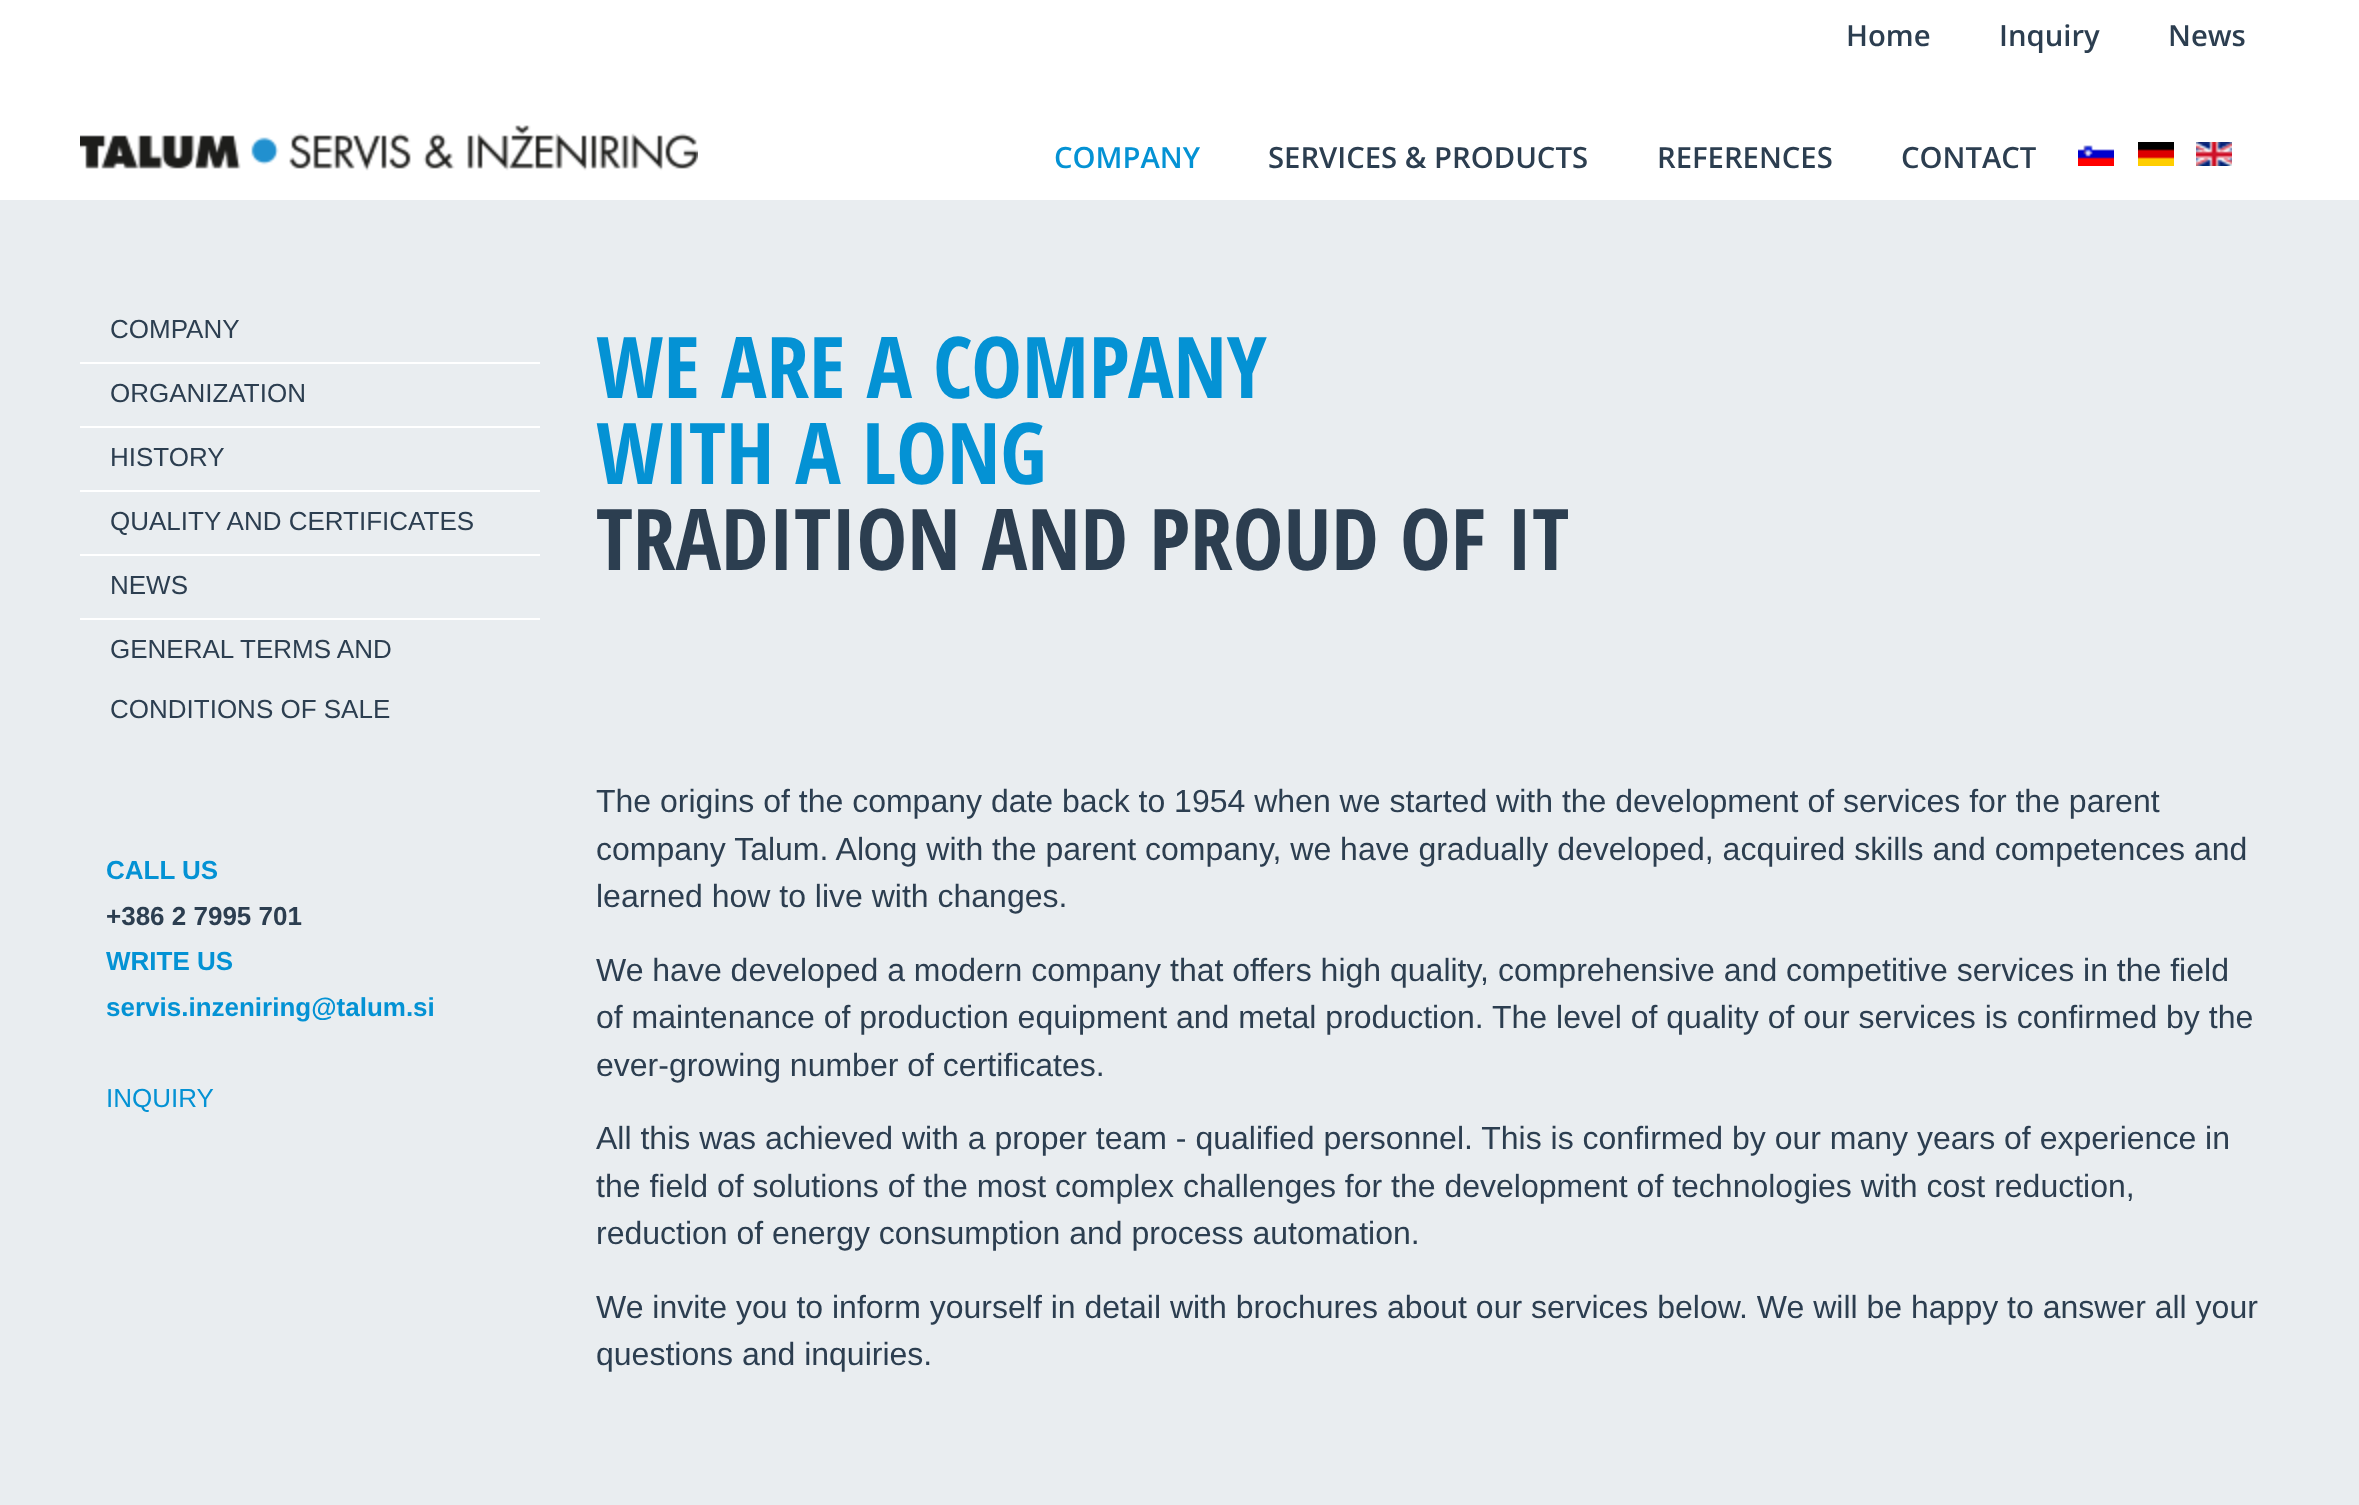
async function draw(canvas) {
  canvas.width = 2359;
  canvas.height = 1505;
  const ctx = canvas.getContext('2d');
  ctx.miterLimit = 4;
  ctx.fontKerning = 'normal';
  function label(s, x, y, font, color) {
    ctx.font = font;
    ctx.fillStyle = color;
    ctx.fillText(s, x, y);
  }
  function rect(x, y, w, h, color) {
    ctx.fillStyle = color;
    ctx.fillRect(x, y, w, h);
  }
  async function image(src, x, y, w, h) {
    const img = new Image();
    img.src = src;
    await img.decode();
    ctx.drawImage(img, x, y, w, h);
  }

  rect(0, 0, 2359, 1505, '#e9edf0');
  rect(0, 0, 2359, 200, '#fff');
  label('Home', 1846, 46, '600 29.25px Open Sans', '#2c3e50');
  label('Inquiry', 1999, 46, '600 29.25px Open Sans', '#2c3e50');
  label('News', 2168, 46, '600 29.25px Open Sans', '#2c3e50');
  await image('assets/img1.png', 80, 125, 618, 46);
  label('COMPANY', 1054, 168, '600 29.25px Open Sans', '#0492d4');
  label('SERVICES & PRODUCTS', 1268, 168, '600 29.25px Open Sans', '#2c3e50');
  label('REFERENCES', 1657, 168, '600 29.25px Open Sans', '#2c3e50');
  label('CONTACT', 1901, 168, '600 29.25px Open Sans', '#2c3e50');
  await image('assets/img2.png', 2078, 145, 36, 21);
  await image('assets/img3.png', 2138, 142, 36, 24);
  await image('assets/img4.png', 2196, 142, 36, 24);
  label('COMPANY', 110, 338, '26px Liberation Sans', '#2c3e50');
  rect(80, 362, 460, 2, '#fff');
  label('ORGANIZATION', 110, 402, '26px Liberation Sans', '#2c3e50');
  rect(80, 426, 460, 2, '#fff');
  label('HISTORY', 110, 466, '26px Liberation Sans', '#2c3e50');
  rect(80, 490, 460, 2, '#fff');
  label('QUALITY AND CERTIFICATES', 110, 530, '26px Liberation Sans', '#2c3e50');
  rect(80, 554, 460, 2, '#fff');
  label('NEWS', 110, 594, '26px Liberation Sans', '#2c3e50');
  rect(80, 618, 460, 2, '#fff');
  label('GENERAL TERMS AND', 110, 658, '26px Liberation Sans', '#2c3e50');
  label('CONDITIONS OF SALE', 110, 718, '26px Liberation Sans', '#2c3e50');
  label('CALL US', 106, 879, 'bold 26px Liberation Sans', '#0492d4');
  label('+386 2 7995 701', 106, 925, 'bold 26px Liberation Sans', '#2c3e50');
  label('WRITE US', 106, 970, 'bold 26px Liberation Sans', '#0492d4');
  label('servis.inzeniring@talum.si', 106, 1016, 'bold 26px Liberation Sans', '#0492d4');
  label('INQUIRY', 106, 1107, '26px Liberation Sans', '#0492d4');
  label('WE ARE A COMPANY', 596, 398, 'bold 85.25px Open Sans Condensed', '#0492d4');
  label('WITH A LONG', 596, 484, 'bold 85.25px Open Sans Condensed', '#0492d4');
  label('TRADITION AND PROUD OF IT', 596, 570, 'bold 85.25px Open Sans Condensed', '#2c3e50');
  label('The origins of the company date back to 1954 when we started with the development of services for the parent', 596, 812, '32px Liberation Sans', '#2c3e50');
  label('company Talum. Along with the parent company, we have gradually developed, acquired skills and competences and', 596, 860, '32px Liberation Sans', '#2c3e50');
  label('learned how to live with changes.', 596, 907, '32px Liberation Sans', '#2c3e50');
  label('We have developed a modern company that offers high quality, comprehensive and competitive services in the field', 596, 981, '32px Liberation Sans', '#2c3e50');
  label('of maintenance of production equipment and metal production. The level of quality of our services is confirmed by the', 596, 1028, '32px Liberation Sans', '#2c3e50');
  label('ever-growing number of certificates.', 596, 1076, '32px Liberation Sans', '#2c3e50');
  label('All this was achieved with a proper team - qualified personnel. This is confirmed by our many years of experience in', 596, 1149, '32px Liberation Sans', '#2c3e50');
  label('the field of solutions of the most complex challenges for the development of technologies with cost reduction,', 596, 1197, '32px Liberation Sans', '#2c3e50');
  label('reduction of energy consumption and process automation.', 596, 1244, '32px Liberation Sans', '#2c3e50');
  label('We invite you to inform yourself in detail with brochures about our services below. We will be happy to answer all your', 596, 1318, '32px Liberation Sans', '#2c3e50');
  label('questions and inquiries.', 596, 1365, '32px Liberation Sans', '#2c3e50');
}

draw(document.querySelector('canvas'));
